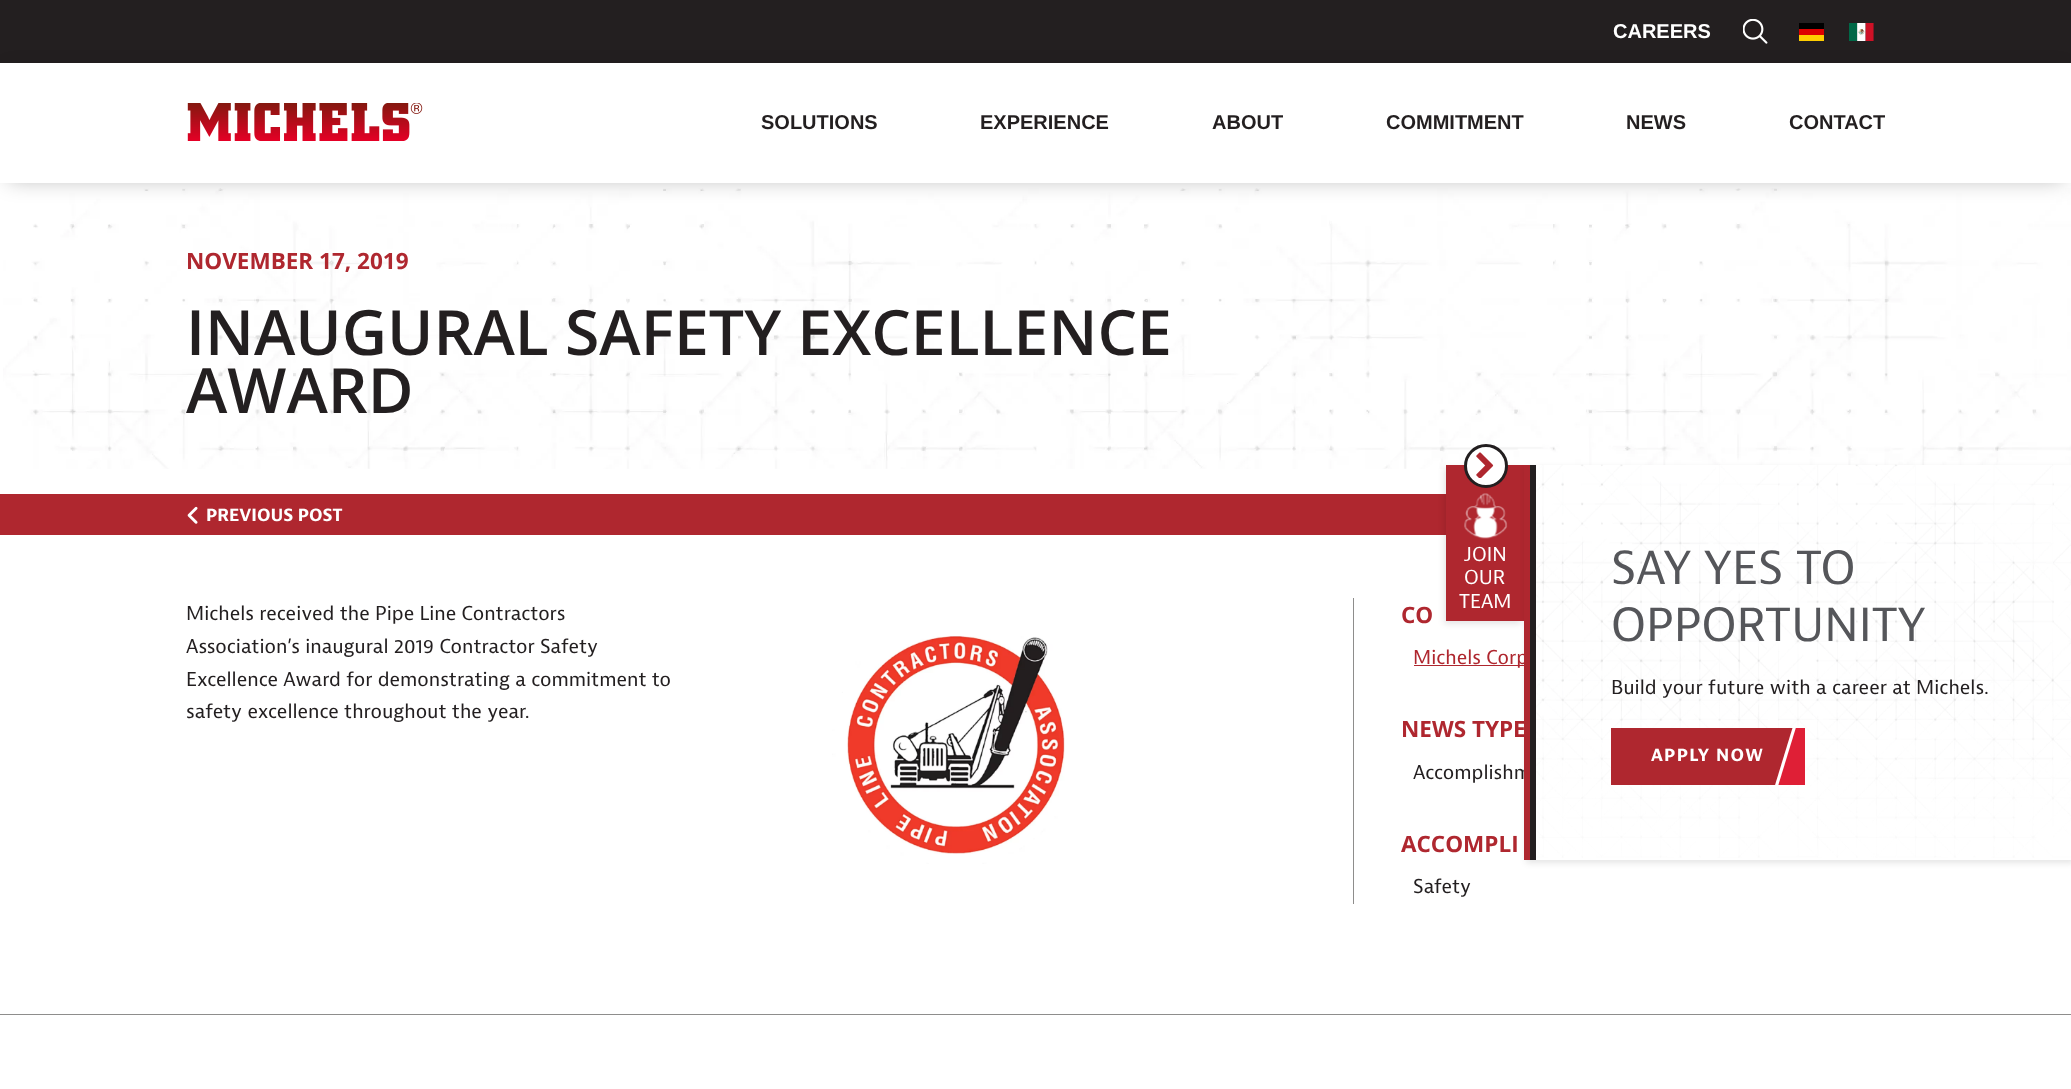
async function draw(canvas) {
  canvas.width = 2071;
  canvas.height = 1089;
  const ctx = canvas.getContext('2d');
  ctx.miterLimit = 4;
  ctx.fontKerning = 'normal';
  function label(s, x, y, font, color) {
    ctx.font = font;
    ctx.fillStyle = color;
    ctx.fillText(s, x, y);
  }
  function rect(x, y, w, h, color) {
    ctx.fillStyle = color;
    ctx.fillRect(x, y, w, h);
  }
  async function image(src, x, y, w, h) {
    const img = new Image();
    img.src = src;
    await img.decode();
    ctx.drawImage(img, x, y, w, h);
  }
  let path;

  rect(0, 0, 2071, 1089, '#fff');
  rect(0, 0, 2071, 63, '#231f20');
  label('CAREERS', 1613, 38, 'bold 20px Liberation Sans', '#fff');
  await image('assets/img1.png', 1743, 19, 25, 25);
  rect(1799, 23, 25, 6, '#000');
  rect(1799, 29, 25, 6, '#d00');
  rect(1799, 35, 25, 6, '#ffce00');
  await image('assets/img2.png', 1849, 23, 25, 18);
  await image('assets/img4.png', 3, 188, 2068, 281);
  ctx.fillStyle = '#0000004d';
  ctx.filter = 'blur(11px)';
  ctx.beginPath();
  ctx.rect(8, 74, 2056, 105);
  ctx.fill();
  ctx.filter = 'none';
  rect(0, 63, 2071, 120, '#fff');
  await image('assets/img3.png', 187, 103, 236, 38);
  label('SOLUTIONS', 761, 129, 'bold 20px Liberation Sans', '#231f20');
  label('EXPERIENCE', 980, 129, 'bold 20px Liberation Sans', '#231f20');
  label('ABOUT', 1212, 129, 'bold 20px Liberation Sans', '#231f20');
  label('COMMITMENT', 1386, 129, 'bold 20px Liberation Sans', '#231f20');
  label('NEWS', 1626, 129, 'bold 20px Liberation Sans', '#231f20');
  label('CONTACT', 1789, 129, 'bold 20px Liberation Sans', '#231f20');
  label('NOVEMBER 17, 2019', 186, 269, 'bold 22.5px Open Sans', '#af272f');
  label('INAUGURAL SAFETY EXCELLENCE', 186, 355, '600 62.5px Open Sans', '#231f20');
  label('AWARD', 186, 413, '600 62.5px Open Sans', '#231f20');
  rect(0, 494, 1446, 41, '#af272f');
  await image('assets/img5.png', 187, 506, 11, 18);
  label('PREVIOUS POST', 206, 521, 'bold 17.5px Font', '#fff');
  label('Michels received the Pipe Line Contractors', 186, 620, '20px Font', '#231f20');
  label('Association’s inaugural 2019 Contractor Safety', 186, 653, '20px Font', '#231f20');
  label('Excellence Award for demonstrating a commitment to', 186, 686, '20px Font', '#231f20');
  label('safety excellence throughout the year.', 186, 718, '20px Font', '#231f20');
  await image('assets/img6.png', 832, 636, 233, 228);
  rect(1353, 598, 1, 306, '#8e8d8c');
  label('CO', 1401, 623, 'bold 22.5px Open Sans', '#af272f');
  rect(1414, 665, 110, 1, '#af272f');
  label('Michels Corp', 1413, 664, '20px Font', '#af272f');
  label('NEWS TYPE', 1401, 737, 'bold 22.5px Open Sans', '#af272f');
  label('Accomplishm', 1413, 779, '20px Font', '#231f20');
  label('ACCOMPLI', 1401, 852, 'bold 22.5px Open Sans', '#af272f');
  label('Safety', 1413, 893, '20px Font', '#231f20');
  rect(0, 1014, 2071, 1, '#8e8d8c');
  ctx.fillStyle = '#0000001a';
  ctx.filter = 'blur(3px)';
  ctx.beginPath();
  ctx.rect(1444, 468, 77, 156);
  ctx.fill();
  ctx.filter = 'none';
  rect(1446, 465, 78, 156, '#af272f');
  ctx.fillStyle = '#fff';
  ctx.beginPath();
  ctx.arc(1486, 466, 20.5, 0, 2 * Math.PI);
  ctx.fill();
  ctx.strokeStyle = '#231f20';
  ctx.lineWidth = 3;
  ctx.stroke();
  await image('assets/img7.png', 1476, 452, 18, 26);
  await image('assets/img8.png', 1464, 493, 44, 46);
  label('JOIN', 1464, 561, '20px Font', '#fff');
  label('OUR', 1464, 584, '20px Font', '#fff');
  label('TEAM', 1459, 608, '20px Font', '#fff');
  ctx.fillStyle = '#0000001a';
  ctx.filter = 'blur(3px)';
  ctx.beginPath();
  ctx.rect(1526, 468, 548, 395);
  ctx.fill();
  ctx.filter = 'none';
  rect(1536, 465, 535, 395, '#fff');
  rect(1524, 465, 6, 395, '#af272f');
  await image('assets/img9.png', 1536, 464, 535, 394);
  rect(1530, 465, 6, 395, '#231f20');
  label('SAY YES TO', 1611, 584, '47.5px Font', '#55565a');
  label('OPPORTUNITY', 1611, 641, '47.5px Font', '#55565a');
  label('Build your future with a career at Michels.', 1611, 694, '20px Font', '#231f20');
  rect(1611, 728, 182, 57, '#af272f');
  ctx.letterSpacing = '1.25px';
  label('APPLY NOW', 1651, 761, 'bold 17.5px Font', '#fff');
  ctx.save();
  ctx.beginPath();
  ctx.rect(1611, 728, 194, 57);
  ctx.clip();
  ctx.fillStyle = '#df1f36';
  path = new Path2D('M1794 723L1833 735L1811 807L1772 795Z');
  ctx.fill(path);
  ctx.fillStyle = '#fff';
  path = new Path2D('M1794 723L1797 724L1775 796L1772 795Z');
  ctx.fill(path);
  ctx.restore();
}

draw(document.querySelector('canvas'));
